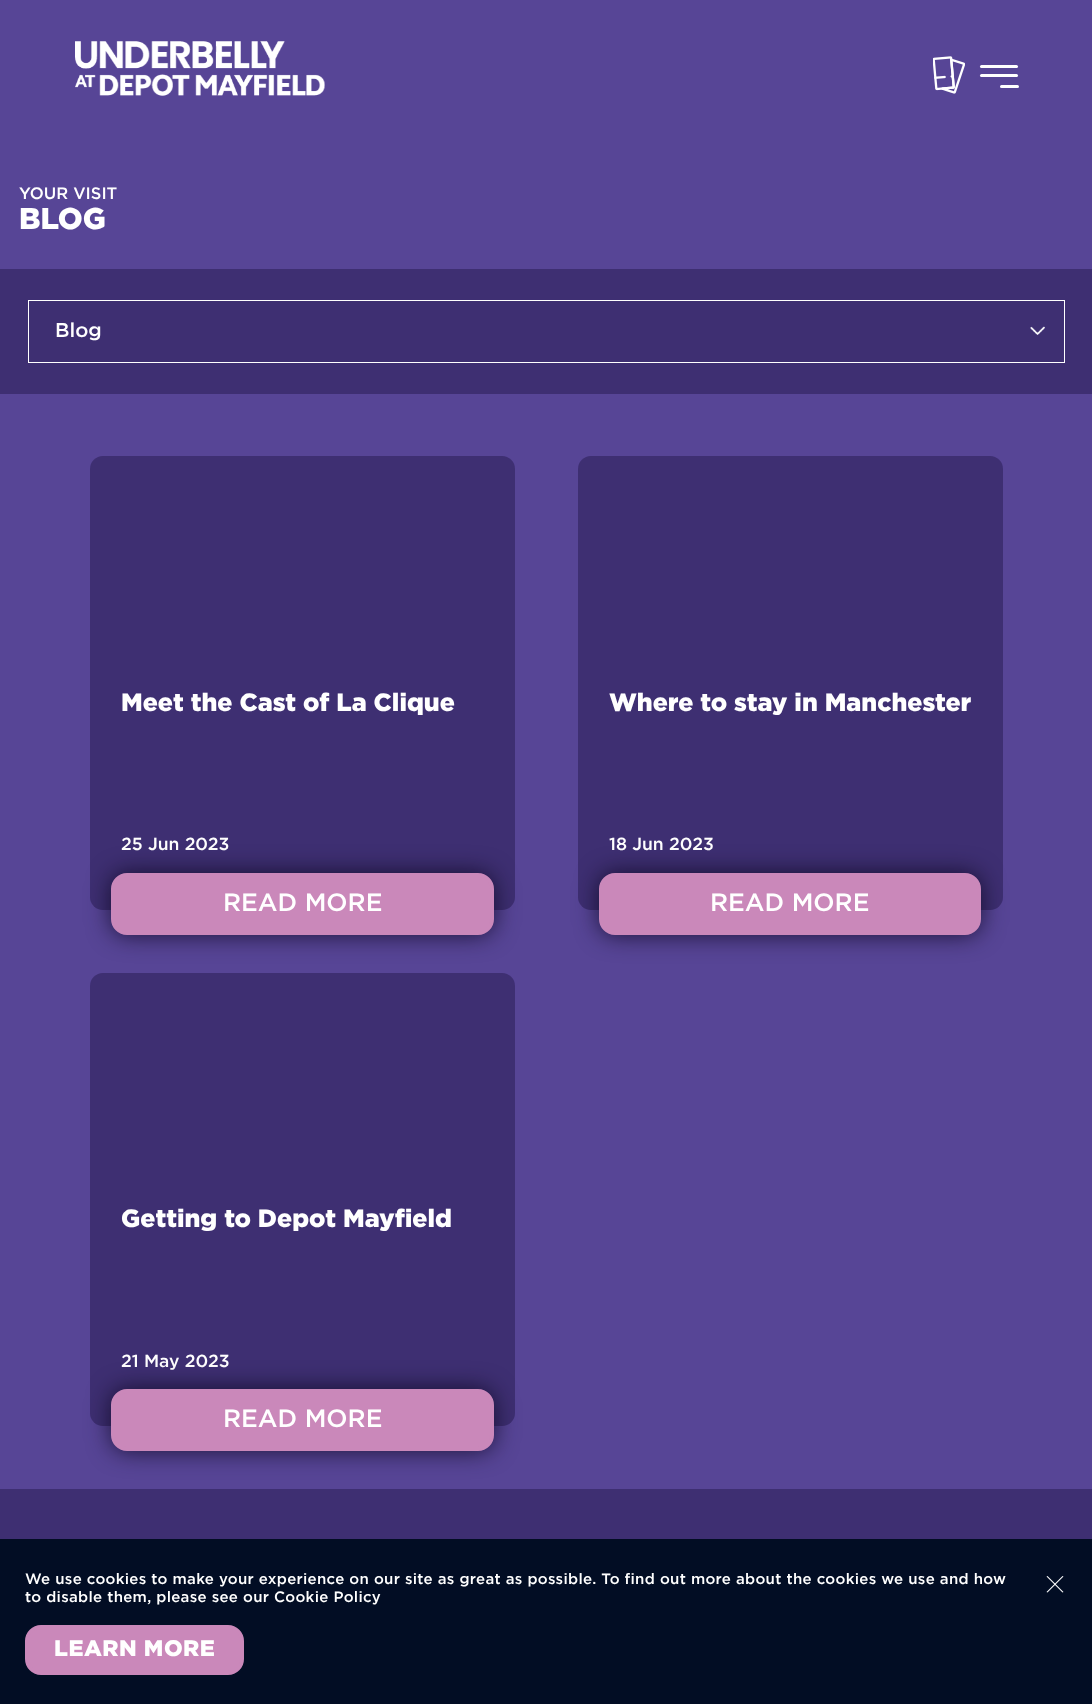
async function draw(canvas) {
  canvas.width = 1092;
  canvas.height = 1704;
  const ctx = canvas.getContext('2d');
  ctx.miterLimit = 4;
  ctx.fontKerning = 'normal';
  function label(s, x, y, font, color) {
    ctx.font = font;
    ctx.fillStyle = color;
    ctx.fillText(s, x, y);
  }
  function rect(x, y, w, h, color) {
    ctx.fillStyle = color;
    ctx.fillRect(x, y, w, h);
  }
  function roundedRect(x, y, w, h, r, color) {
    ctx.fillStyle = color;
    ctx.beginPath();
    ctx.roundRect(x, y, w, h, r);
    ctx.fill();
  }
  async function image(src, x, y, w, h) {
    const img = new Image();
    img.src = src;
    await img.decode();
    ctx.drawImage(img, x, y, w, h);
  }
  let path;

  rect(0, 0, 1092, 1704, '#574596');
  await image('assets/img1.png', 75, 41, 250, 55);
  await image('assets/img2.png', 933, 56, 32, 38);
  roundedRect(980, 74, 38, 3, 1.5, '#fff');
  roundedRect(980, 65, 38, 3, 1.5, '#fff');
  roundedRect(1000, 85, 19, 3, 1.5, '#fff');
  label('YOUR VISIT', 19, 199, '500 16.5px Gotham', '#fff');
  label('BLOG', 19, 229, '900 30px Gotham', '#fff');
  rect(0, 269, 1092, 125, '#3e2f72');
  ctx.strokeStyle = '#fff';
  ctx.strokeRect(28.5, 300.5, 1036, 62);
  label('Blog', 55, 337, '500 20px Gotham', '#fff');
  await image('assets/img3.png', 1030, 326, 15, 9);
  roundedRect(90, 456, 425, 454, 13, '#3e2f72');
  label('Meet the Cast of La Clique', 121, 711, '900 25px Gotham', '#fff');
  label('25 Jun 2023', 121, 850, '500 17.5px Gotham', '#fff');
  ctx.fillStyle = '#0b051dcc';
  ctx.filter = 'blur(12.5px)';
  ctx.beginPath();
  ctx.roundRect(111, 873, 383, 62, 16);
  ctx.fill();
  ctx.filter = 'none';
  ctx.fillStyle = '#ca88ba';
  ctx.beginPath();
  ctx.roundRect(113, 875, 379, 58, 14);
  ctx.fill();
  ctx.strokeStyle = '#ca88ba';
  ctx.lineWidth = 4;
  ctx.stroke();
  label('READ MORE', 223, 911, '500 25px Gotham', '#fff');
  roundedRect(578, 456, 425, 454, 13, '#3e2f72');
  label('Where to stay in Manchester', 609, 711, '900 25px Gotham', '#fff');
  label('18 Jun 2023', 609, 850, '500 17.5px Gotham', '#fff');
  ctx.fillStyle = '#0b051dcc';
  ctx.filter = 'blur(12.5px)';
  ctx.beginPath();
  ctx.roundRect(599, 873, 382, 62, 16);
  ctx.fill();
  ctx.filter = 'none';
  ctx.fillStyle = '#ca88ba';
  ctx.beginPath();
  ctx.roundRect(601, 875, 378, 58, 14);
  ctx.fill();
  ctx.stroke();
  label('READ MORE', 710, 911, '500 25px Gotham', '#fff');
  roundedRect(90, 973, 425, 453, 13, '#3e2f72');
  label('Getting to Depot Mayfield', 121, 1227, '900 25px Gotham', '#fff');
  label('21 May 2023', 121, 1367, '500 17.5px Gotham', '#fff');
  ctx.fillStyle = '#0b051dcc';
  ctx.filter = 'blur(12.5px)';
  ctx.beginPath();
  ctx.roundRect(111, 1389, 383, 62, 16);
  ctx.fill();
  ctx.filter = 'none';
  ctx.fillStyle = '#ca88ba';
  ctx.beginPath();
  ctx.roundRect(113, 1391, 379, 58, 14);
  ctx.fill();
  ctx.stroke();
  label('READ MORE', 223, 1427, '500 25px Gotham', '#fff');
  rect(0, 1489, 1092, 50, '#3e2f72');
  rect(0, 1539, 1092, 165, '#020d24');
  ctx.letterSpacing = '0.3px';
  label('We use cookies to make your experience on our site as great as possible. To find out more about the cookies we use and how', 25, 1584, '500 15px Gotham', '#fff');
  label('to disable them, please see our Cookie Policy', 25, 1602, '500 15px Gotham', '#fff');
  path = new Path2D('M1046.5 1576.5L1047.5 1576L1063.5 1592L1062.5 1592.5Z');
  ctx.fill(path);
  path = new Path2D('M1062.5 1576L1063.5 1576.5L1047.5 1592.5L1046.5 1592Z');
  ctx.fill(path);
  ctx.fillStyle = '#ca88ba';
  ctx.beginPath();
  ctx.roundRect(27, 1627, 215, 46, 14);
  ctx.fill();
  ctx.stroke();
  ctx.letterSpacing = '0.5px';
  label('LEARN MORE', 54, 1656, '900 22.5px Gotham', '#fff');
}

draw(document.querySelector('canvas'));
